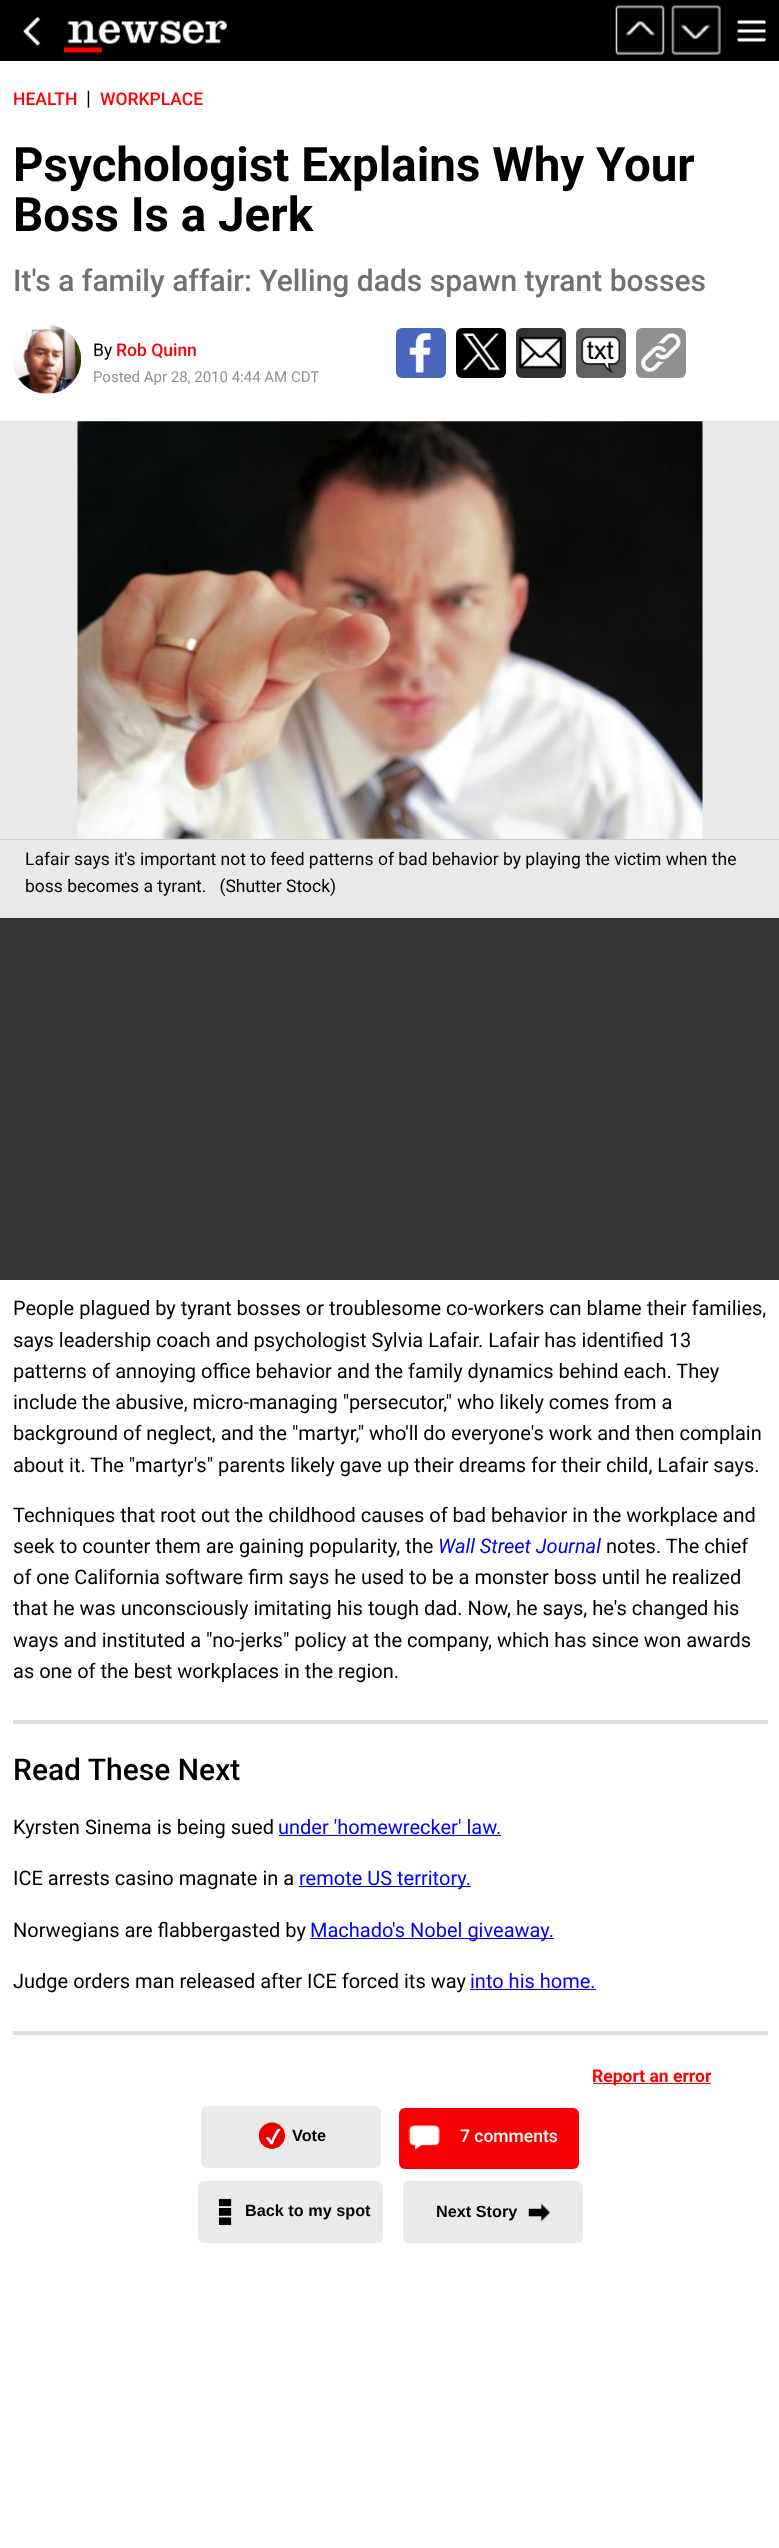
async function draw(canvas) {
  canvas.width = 779;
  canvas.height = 2548;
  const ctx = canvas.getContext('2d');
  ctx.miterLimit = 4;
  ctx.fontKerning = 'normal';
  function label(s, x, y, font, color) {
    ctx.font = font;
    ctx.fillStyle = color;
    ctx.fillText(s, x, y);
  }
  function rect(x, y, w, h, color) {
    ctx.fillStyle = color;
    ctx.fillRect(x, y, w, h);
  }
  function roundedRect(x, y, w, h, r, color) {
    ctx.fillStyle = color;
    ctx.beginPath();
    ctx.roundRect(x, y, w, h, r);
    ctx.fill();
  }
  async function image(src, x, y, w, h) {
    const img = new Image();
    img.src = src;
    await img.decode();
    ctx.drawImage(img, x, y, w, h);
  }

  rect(0, 0, 779, 2548, '#fff');
  rect(0, 0, 779, 61, '#000');
  await image('assets/img1.png', 23, 16, 18, 30);
  await image('assets/img2.png', 64, 20, 163, 33);
  await image('assets/img3.png', 615, 5, 50, 50);
  await image('assets/img4.png', 671, 5, 50, 50);
  await image('assets/img5.png', 737, 20, 29, 22);
  label('HEALTH', 13, 105, '500 17.5px Roboto', '#f00');
  label('|', 86, 105, '20px Roboto', '#000');
  label('WORKPLACE', 100, 105, '500 17.5px Roboto', '#f00');
  label('Psychologist Explains Why Your', 13, 181, 'bold 47.5px Roboto', '#000');
  label('Boss Is a Jerk', 13, 231, 'bold 47.5px Roboto', '#000');
  label('It\'s a family affair: Yelling dads spawn tyrant bosses', 13, 291, '500 30px Roboto', '#717171');
  await image('assets/img6.png', 13, 325, 69, 69);
  label('By', 93, 356, '17.5px Roboto', '#000');
  label('Rob Quinn', 116, 356, '500 17.5px Roboto', '#f00');
  label('Posted Apr 28, 2010 4:44 AM CDT', 93, 382, '15px Roboto', '#919191');
  roundedRect(396, 328, 50, 50, 6, '#4a65bc');
  await image('assets/img7.png', 409, 332, 22, 41);
  roundedRect(456, 328, 50, 50, 6, '#000');
  await image('assets/img8.png', 462, 333, 39, 38);
  roundedRect(516, 328, 50, 50, 6, '#333');
  await image('assets/img9.png', 518, 336, 45, 33);
  roundedRect(576, 328, 50, 50, 6, '#606060');
  await image('assets/img10.png', 581, 336, 39, 38);
  roundedRect(636, 328, 50, 50, 6, '#909090');
  await image('assets/img11.png', 640, 333, 41, 39);
  rect(0, 421, 779, 497, '#e9e9e9');
  rect(0, 839, 779, 1, '#ccc');
  await image('assets/img12.png', 77, 421, 626, 418);
  label('Lafair says it\'s important not to feed patterns of bad behavior by playing the victim when the', 25, 865, '17.5px Roboto', '#000');
  label('boss becomes a tyrant.   (Shutter Stock)', 25, 892, '17.5px Roboto', '#000');
  rect(0, 918, 779, 362, '#333');
  label('People plagued by tyrant bosses or troublesome co-workers can blame their families,', 13, 1315, '20px Roboto', '#000');
  label('says leadership coach and psychologist Sylvia Lafair. Lafair has identified 13', 13, 1347, '20px Roboto', '#000');
  label('patterns of annoying office behavior and the family dynamics behind each. They', 13, 1378, '20px Roboto', '#000');
  label('include the abusive, micro-managing "persecutor," who likely comes from a', 13, 1409, '20px Roboto', '#000');
  label('background of neglect, and the "martyr," who\'ll do everyone\'s work and then complain', 13, 1440, '20px Roboto', '#000');
  label('about it. The "martyr\'s" parents likely gave up their dreams for their child, Lafair says.', 13, 1472, '20px Roboto', '#000');
  label('Techniques that root out the childhood causes of bad behavior in the workplace and', 13, 1522, '20px Roboto', '#000');
  label('seek to counter them are gaining popularity, the', 13, 1553, '20px Roboto', '#000');
  label('Wall Street Journal', 438, 1553, 'italic 20px Roboto', '#00e');
  label('notes. The chief', 606, 1553, '20px Roboto', '#000');
  label('of one California software firm says he used to be a monster boss until he realized', 13, 1584, '20px Roboto', '#000');
  label('that he was unconsciously imitating his tough dad. Now, he says, he\'s changed his', 13, 1615, '20px Roboto', '#000');
  label('ways and instituted a "no-jerks" policy at the company, which has since won awards', 13, 1647, '20px Roboto', '#000');
  label('as one of the best workplaces in the region.', 13, 1678, '20px Roboto', '#000');
  rect(13, 1720, 755, 4, '#dedede');
  label('Read These Next', 13, 1780, '500 30px Roboto', '#000');
  label('Kyrsten Sinema is being sued', 13, 1834, '20px Roboto', '#000');
  label('under \'homewrecker\' law.', 278, 1834, '20px Roboto', '#00f');
  rect(279, 1835, 222, 1, '#00f');
  label('ICE arrests casino magnate in a', 13, 1885, '20px Roboto', '#000');
  rect(299, 1886, 172, 1, '#00f');
  label('remote US territory.', 299, 1885, '20px Roboto', '#00f');
  label('Norwegians are flabbergasted by', 13, 1937, '20px Roboto', '#000');
  rect(310, 1938, 244, 1, '#00f');
  label('Machado\'s Nobel giveaway.', 310, 1937, '20px Roboto', '#00f');
  label('Judge orders man released after ICE forced its way', 13, 1988, '20px Roboto', '#000');
  label('into his home.', 470, 1988, '20px Roboto', '#00f');
  rect(470, 1989, 126, 1, '#00f');
  rect(13, 2031, 755, 4, '#dedede');
  rect(593, 2083, 118, 1, '#f00');
  label('Report an error', 592, 2082, 'bold 17.5px Roboto', '#f00');
  roundedRect(201, 2106, 180, 62, 6, '#ebeaea');
  await image('assets/img13.png', 258, 2122, 27, 27);
  label('Vote', 292, 2141, 'bold 16.25px Liberation Sans', '#000');
  roundedRect(399, 2108, 180, 61, 6, '#f60001');
  await image('assets/img14.png', 408, 2125, 32, 25);
  label('7 comments', 460, 2142, '500 17.5px Roboto', '#fff');
  roundedRect(198, 2181, 185, 62, 6, '#ebeaea');
  await image('assets/img15.png', 218, 2198, 14, 27);
  label('Back to my spot', 245, 2216, 'bold 16.25px Liberation Sans', '#000');
  roundedRect(403, 2181, 180, 62, 6, '#ebeaea');
  label('Next Story', 436, 2217, 'bold 16.25px Liberation Sans', '#000');
  await image('assets/img16.png', 528, 2203, 22, 19);
}

draw(document.querySelector('canvas'));
